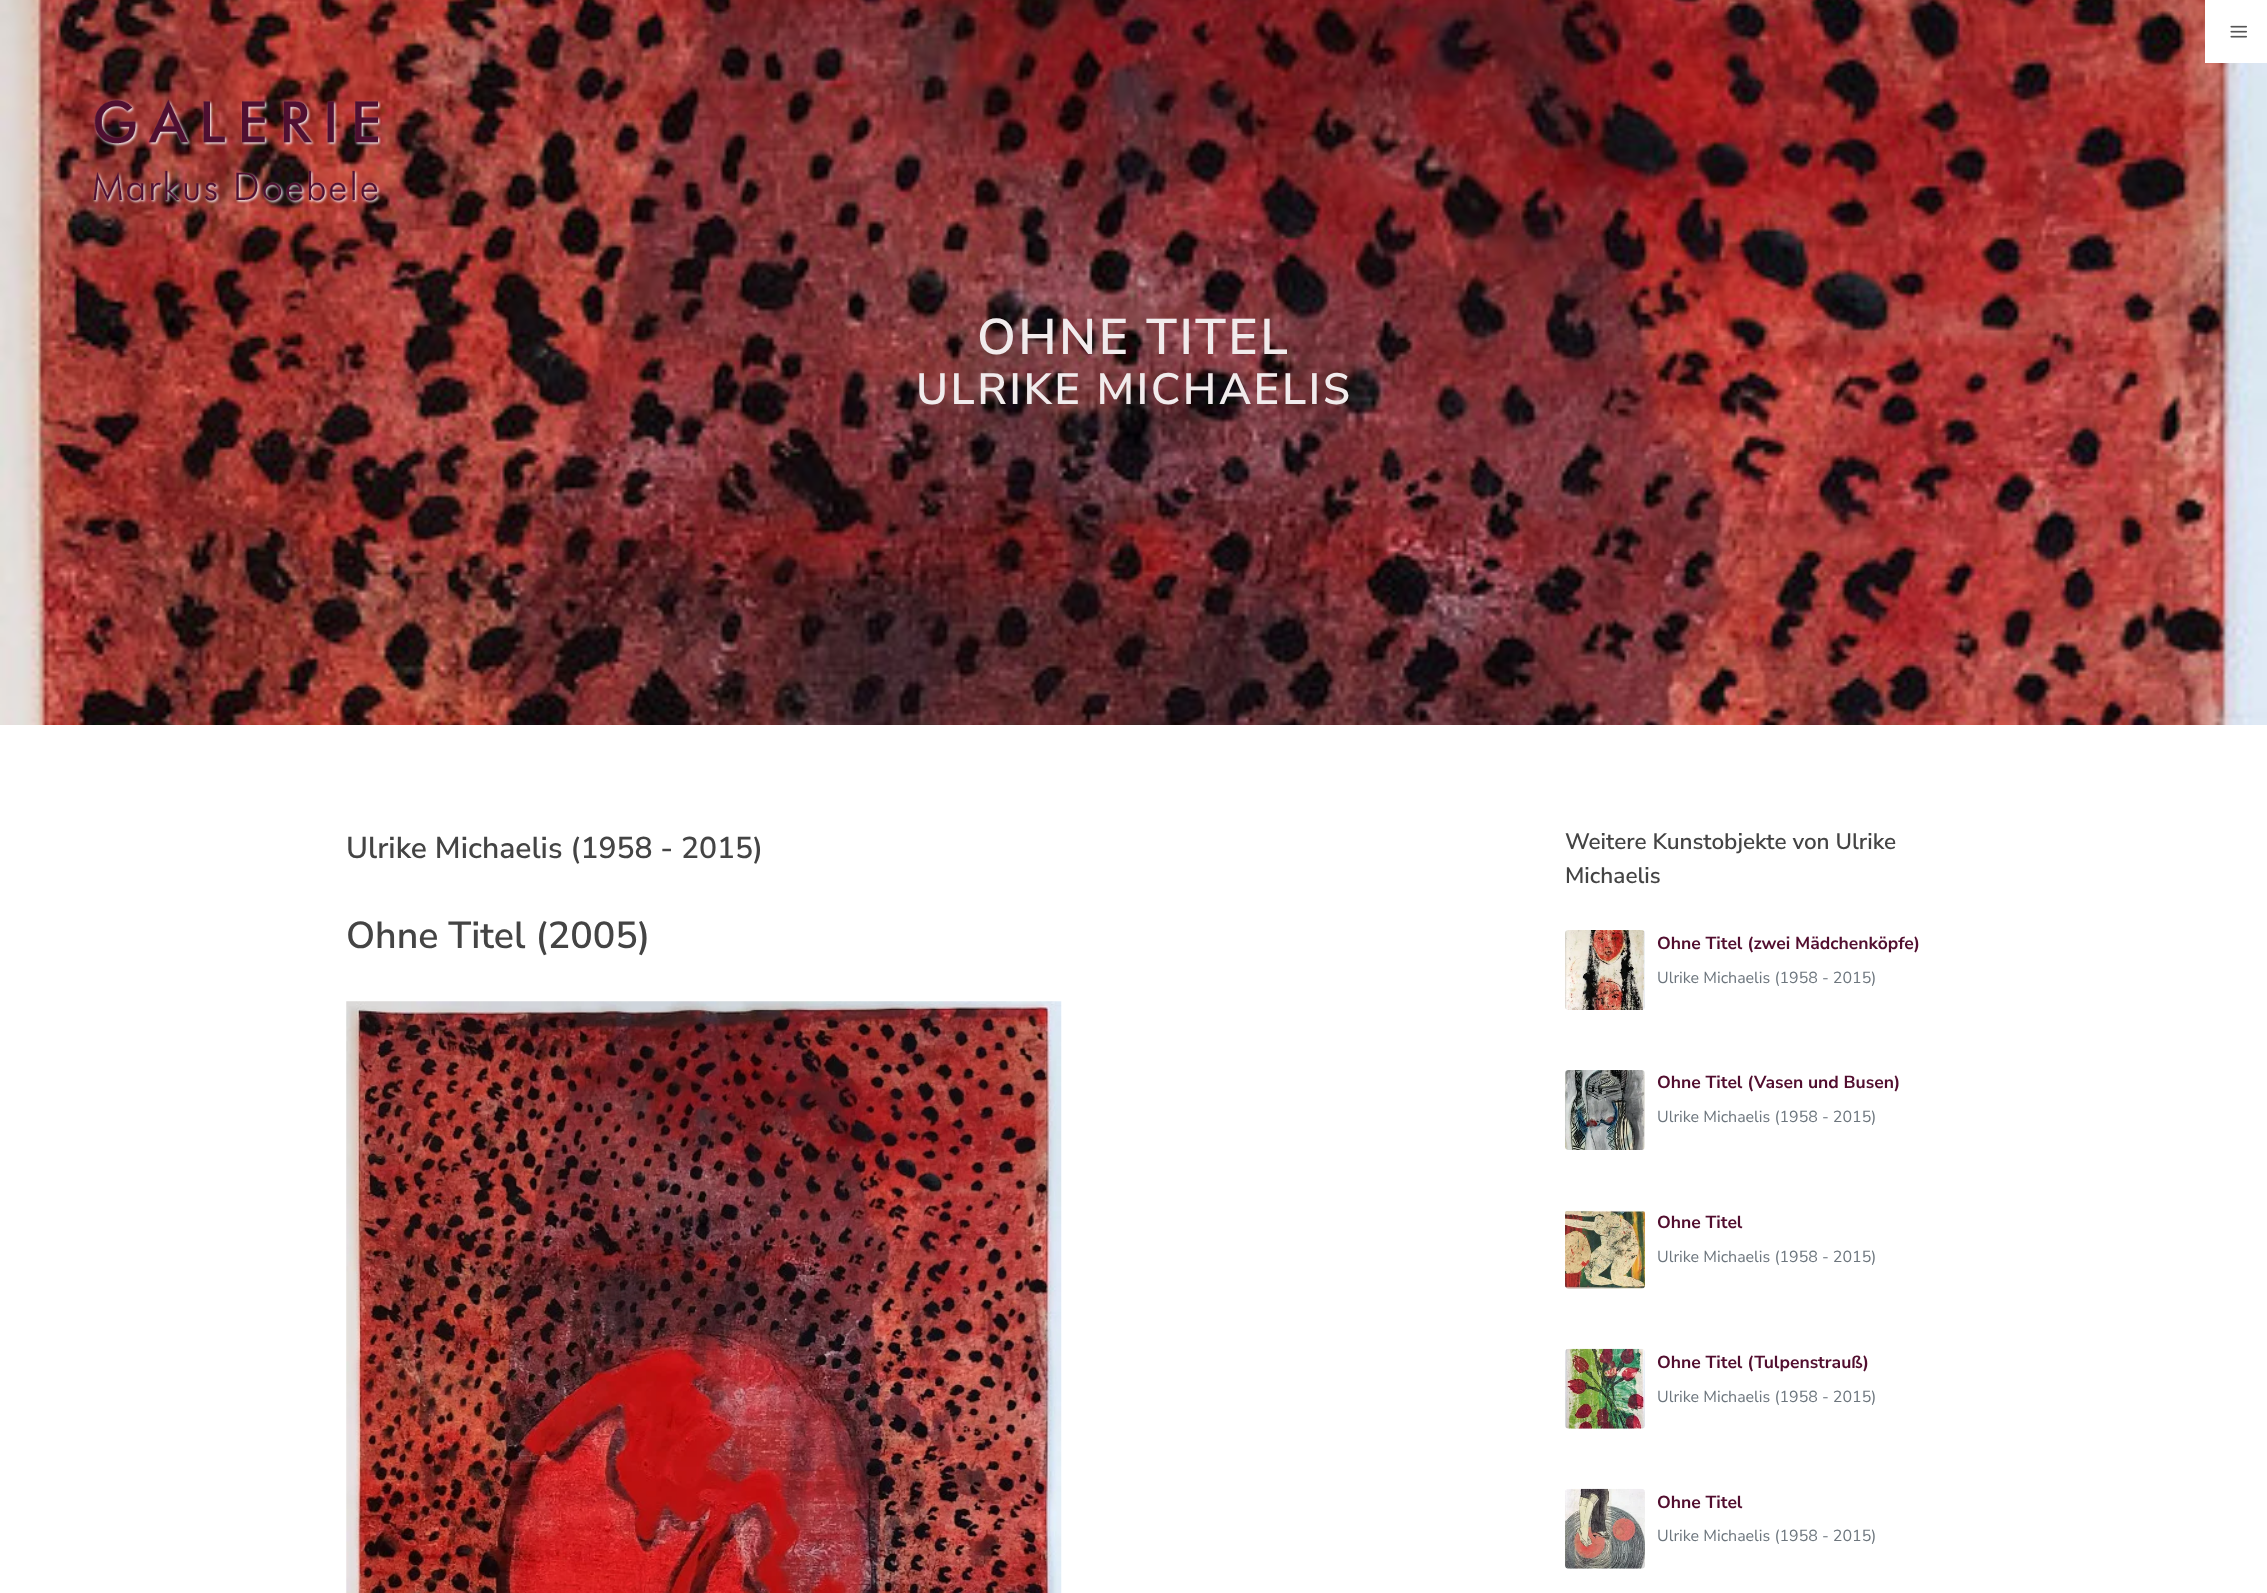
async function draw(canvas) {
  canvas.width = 2267;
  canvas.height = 1593;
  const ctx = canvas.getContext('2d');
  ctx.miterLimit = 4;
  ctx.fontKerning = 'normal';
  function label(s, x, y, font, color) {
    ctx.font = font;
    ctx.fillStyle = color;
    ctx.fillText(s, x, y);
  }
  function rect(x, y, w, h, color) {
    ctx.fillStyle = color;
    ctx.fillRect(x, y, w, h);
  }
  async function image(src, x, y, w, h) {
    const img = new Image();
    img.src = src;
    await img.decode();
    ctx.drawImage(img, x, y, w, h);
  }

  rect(0, 0, 2267, 1593, '#fff');
  await image('assets/img3.png', 0, 0, 2267, 725);
  rect(2205, 0, 62, 63, '#fff');
  await image('assets/img1.png', 2230, 25, 17, 13);
  await image('assets/img2.png', 93, 99, 288, 105);
  ctx.letterSpacing = '2.5px';
  label('OHNE TITEL', 977, 354, '600 50px Nunito Sans', '#f1ebec');
  label('ULRIKE MICHAELIS', 916, 404, '600 43.75px Nunito Sans', '#f1ebec');
  ctx.letterSpacing = '0px';
  label('Ulrike Michaelis (1958 - 2015)', 346, 858, '600 30px Nunito Sans', '#444');
  label('Ohne Titel (2005)', 346, 948, '600 37.5px Nunito Sans', '#444');
  await image('assets/img4.png', 346, 1001, 716, 592);
  label('Weitere Kunstobjekte von Ulrike', 1565, 849, '600 22.5px Nunito Sans', '#444');
  label('Michaelis', 1565, 883, '600 22.5px Nunito Sans', '#444');
  await image('assets/img5.png', 1565, 930, 80, 80);
  label('Ohne Titel (zwei Mädchenköpfe)', 1657, 949, 'bold 17.5px Nunito Sans', '#520e2f');
  label('Ulrike Michaelis (1958 - 2015)', 1657, 983, '16px Nunito Sans', '#6c757d');
  await image('assets/img6.png', 1565, 1070, 80, 80);
  label('Ohne Titel (Vasen und Busen)', 1657, 1088, 'bold 17.5px Nunito Sans', '#520e2f');
  label('Ulrike Michaelis (1958 - 2015)', 1657, 1122, '16px Nunito Sans', '#6c757d');
  await image('assets/img7.png', 1565, 1210, 80, 79);
  label('Ohne Titel', 1657, 1228, 'bold 17.5px Nunito Sans', '#520e2f');
  label('Ulrike Michaelis (1958 - 2015)', 1657, 1262, '16px Nunito Sans', '#6c757d');
  await image('assets/img8.png', 1565, 1348, 80, 81);
  label('Ohne Titel (Tulpenstrauß)', 1657, 1368, 'bold 17.5px Nunito Sans', '#520e2f');
  label('Ulrike Michaelis (1958 - 2015)', 1657, 1402, '16px Nunito Sans', '#6c757d');
  await image('assets/img9.png', 1565, 1488, 80, 81);
  label('Ohne Titel', 1657, 1508, 'bold 17.5px Nunito Sans', '#520e2f');
  label('Ulrike Michaelis (1958 - 2015)', 1657, 1541, '16px Nunito Sans', '#6c757d');
}

draw(document.querySelector('canvas'));
